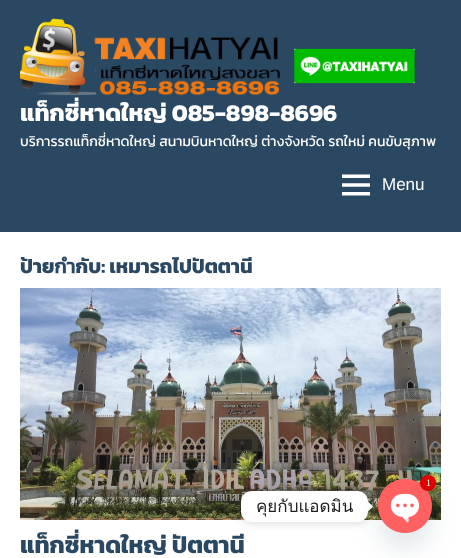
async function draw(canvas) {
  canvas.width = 461;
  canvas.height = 558;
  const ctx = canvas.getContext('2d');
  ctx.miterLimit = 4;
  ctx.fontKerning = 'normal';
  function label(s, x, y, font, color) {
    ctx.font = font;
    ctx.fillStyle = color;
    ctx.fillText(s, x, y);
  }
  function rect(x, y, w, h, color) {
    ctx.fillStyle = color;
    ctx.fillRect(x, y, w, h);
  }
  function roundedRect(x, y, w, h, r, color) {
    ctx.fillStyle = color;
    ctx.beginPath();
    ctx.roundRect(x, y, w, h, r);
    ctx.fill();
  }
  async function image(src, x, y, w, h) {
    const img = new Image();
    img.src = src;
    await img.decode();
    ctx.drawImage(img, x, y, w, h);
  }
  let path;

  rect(0, 0, 461, 558, '#2a4861');
  await image('assets/img1.png', 20, 18, 395, 78);
  label('แท็กซี่หาดใหญ่ 085-898-8696', 20, 121, 'bold 24px Kanit', '#fff');
  label('บริการรถแท็กซี่หาดใหญ่ สนามบินหาดใหญ่ ต่างจังหวัด รถใหม่ คนขับสุภาพ', 20, 146, '14px Kanit', '#fff');
  await image('assets/img2.png', 342, 174, 28, 22);
  label('Menu', 382, 190, '17px Liberation Sans', '#fff');
  rect(0, 232, 461, 326, '#fff');
  label('ป้ายกำกับ: เหมารถไปปัตตานี', 20, 273, 'bold 20px Kanit', '#2a4861');
  await image('assets/img3.png', 20, 288, 421, 232);
  label('แท็กซี่หาดใหญ่ ปัตตานี', 20, 553, 'bold 24px Kanit', '#2a4861');
  ctx.fillStyle = '#00000026';
  ctx.filter = 'blur(4px)';
  ctx.beginPath();
  ctx.roundRect(241, 492, 127, 31, 10);
  ctx.fill();
  ctx.filter = 'none';
  roundedRect(241, 491, 127, 31, 10, '#fff');
  path = new Path2D('M368 511.5V501.5L373 506.5Z');
  ctx.fill(path);
  ctx.fillStyle = '#49687e29';
  ctx.filter = 'blur(12px)';
  ctx.beginPath();
  ctx.roundRect(378, 495, 54, 54, 27);
  ctx.fill();
  ctx.filter = 'none';
  await image('assets/img4.png', 378, 479, 54, 54);
  ctx.fillStyle = '#d00';
  ctx.beginPath();
  ctx.arc(428, 483, 8, 0, 2 * Math.PI);
  ctx.fill();
  label('1', 426, 486, '10px Liberation Serif', '#fff');
  label('คุยกับแอดมิน', 256, 512, '17px Loma', '#202020');
}

draw(document.querySelector('canvas'));
